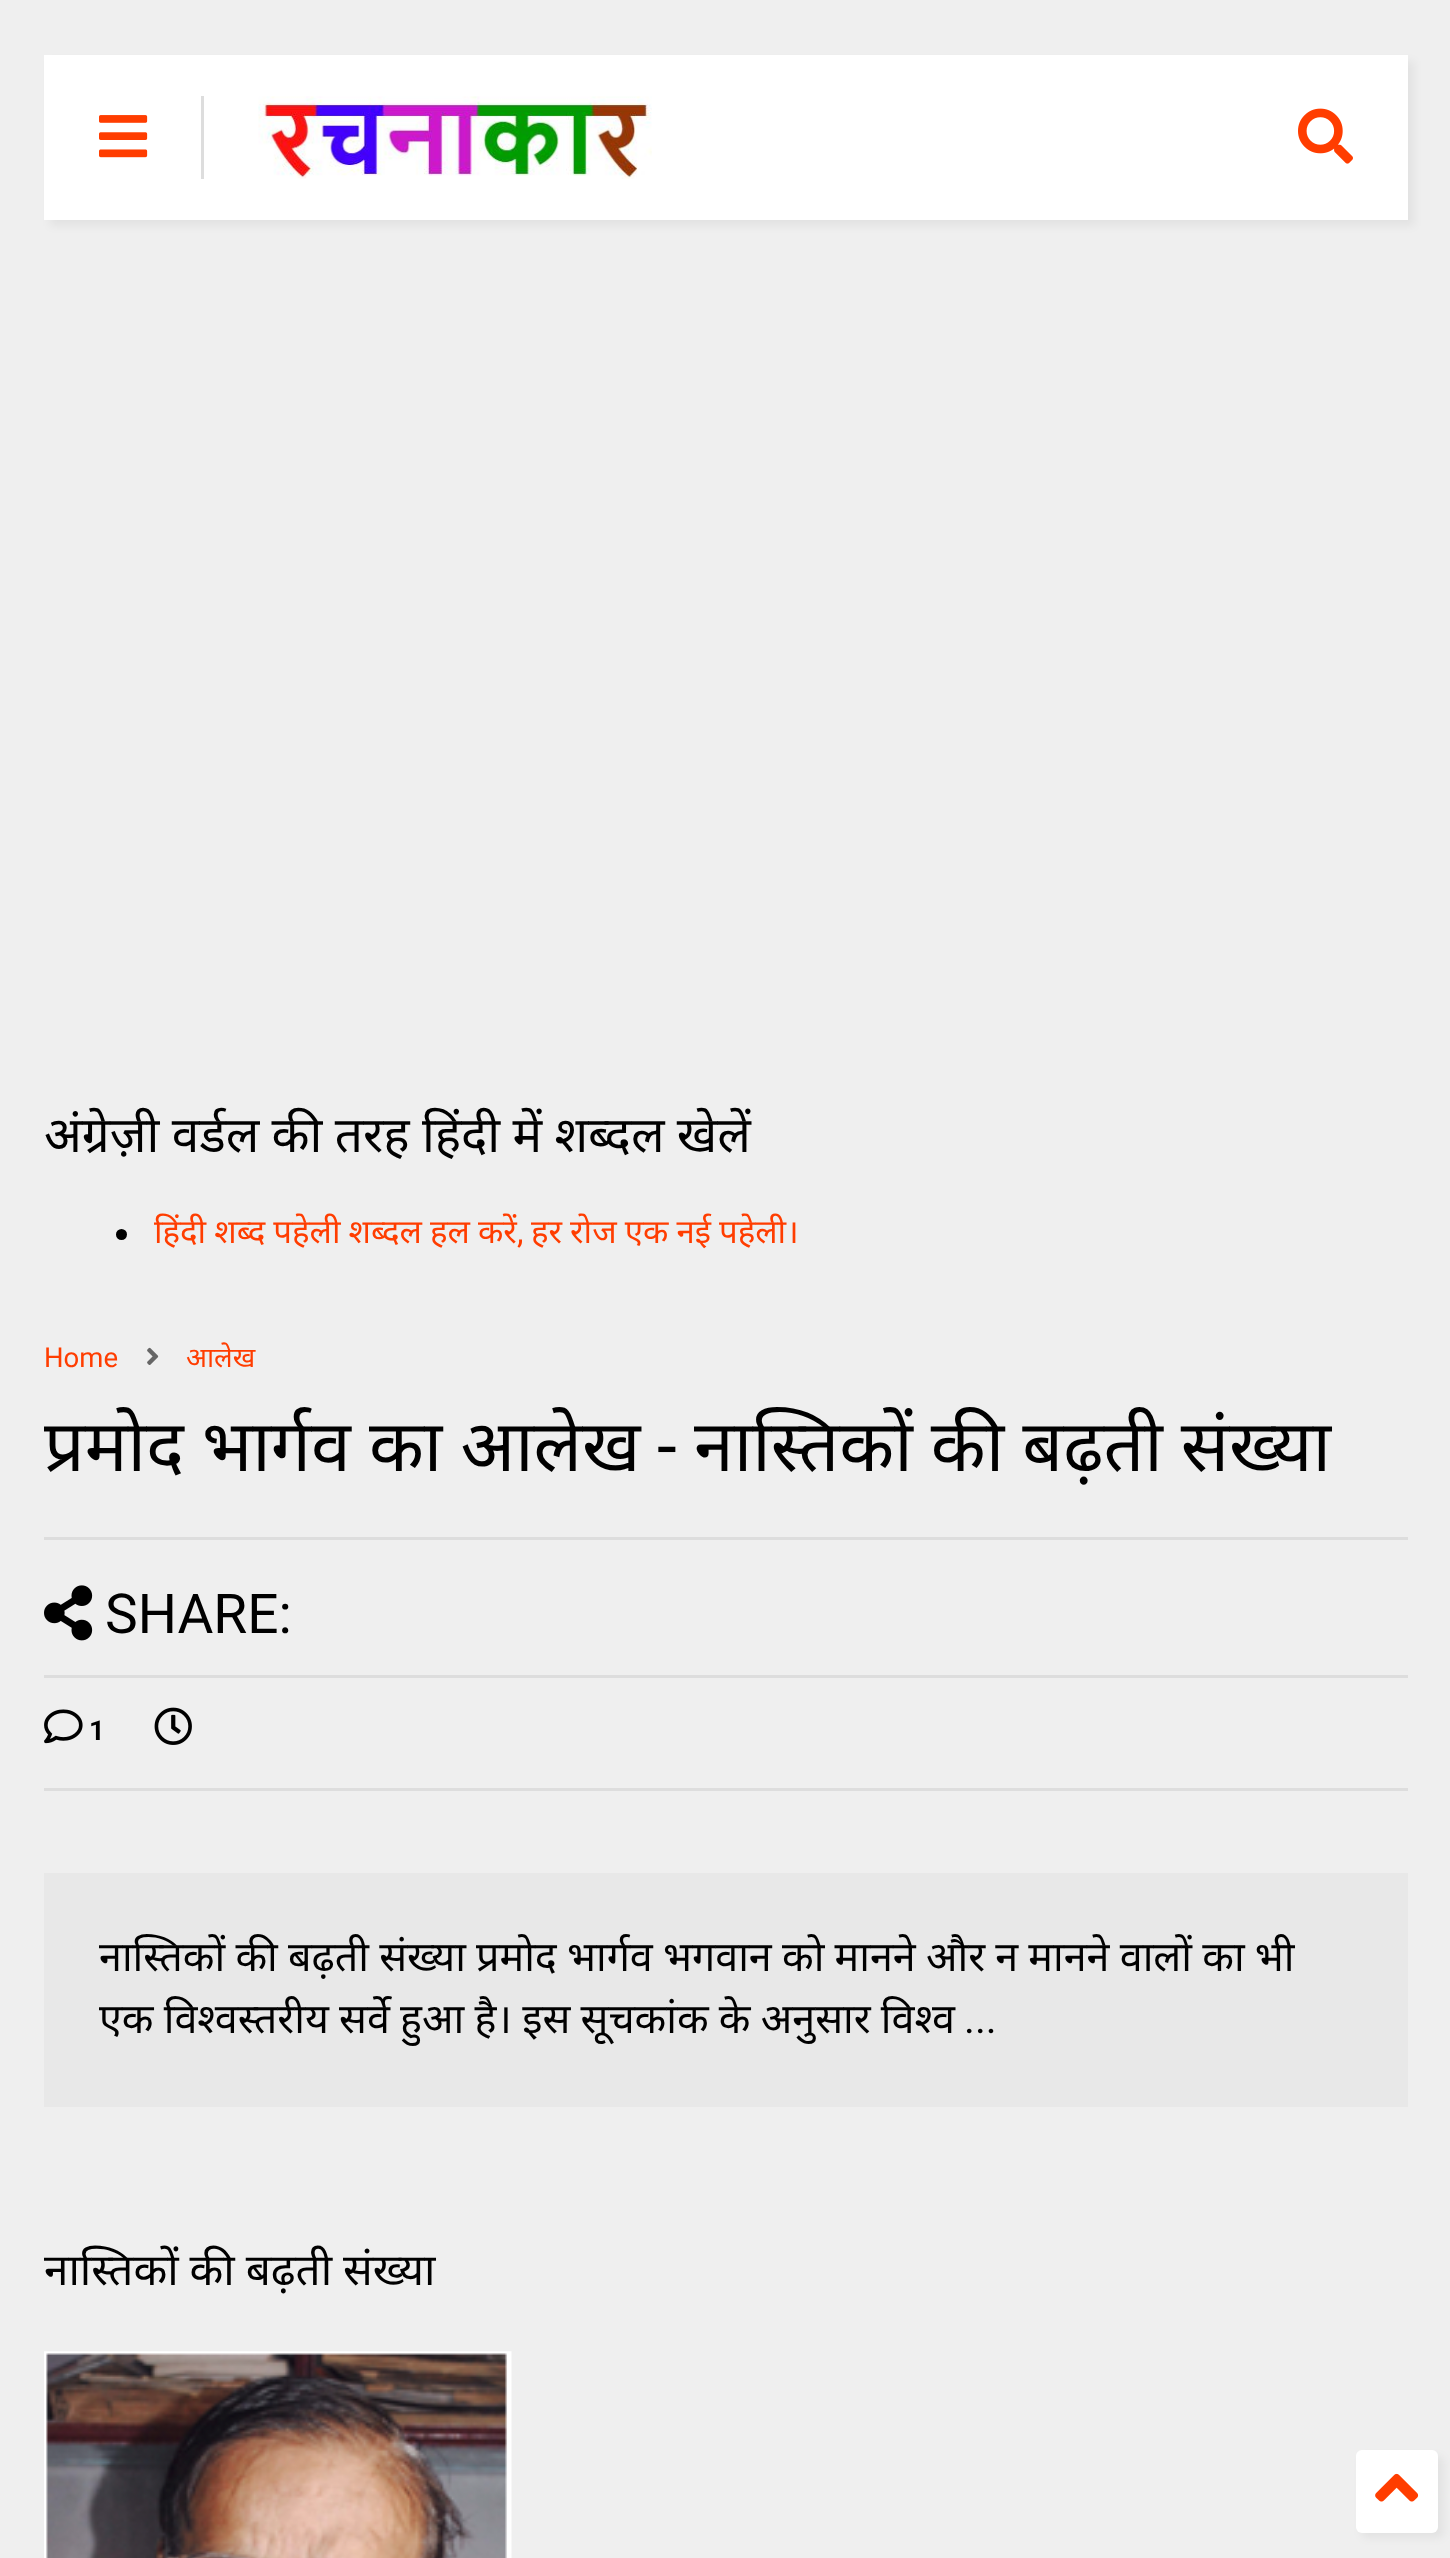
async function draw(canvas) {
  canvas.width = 1450;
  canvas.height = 2558;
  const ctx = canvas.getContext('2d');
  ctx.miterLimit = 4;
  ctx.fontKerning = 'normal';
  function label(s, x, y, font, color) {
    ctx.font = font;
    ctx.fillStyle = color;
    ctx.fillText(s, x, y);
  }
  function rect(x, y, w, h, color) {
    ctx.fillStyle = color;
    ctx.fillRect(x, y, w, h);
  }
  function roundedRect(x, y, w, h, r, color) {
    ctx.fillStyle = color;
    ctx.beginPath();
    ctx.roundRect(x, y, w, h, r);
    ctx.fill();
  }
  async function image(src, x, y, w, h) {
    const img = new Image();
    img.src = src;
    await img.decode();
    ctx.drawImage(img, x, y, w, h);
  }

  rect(0, 0, 1450, 2558, '#efefef');
  ctx.fillStyle = '#0000000d';
  ctx.filter = 'blur(4px)';
  ctx.beginPath();
  ctx.rect(50, 61, 1364, 165);
  ctx.fill();
  ctx.filter = 'none';
  rect(44, 55, 1364, 165, '#fff');
  await image('assets/img1.png', 99, 115, 49, 43);
  rect(201, 96, 3, 83, '#ddd');
  await image('assets/img2.png', 258, 96, 394, 83);
  await image('assets/img3.png', 1298, 108, 55, 56);
  ctx.wordSpacing = '-0.5px';
  label('अंग्रेज़ी वर्डल की तरह हिंदी में शब्दल खेलें', 44, 1152, '49.5px Noto Sans', '#000');
  ctx.beginPath();
  ctx.arc(121.5, 1234.5, 5.5, 0, 2 * Math.PI);
  ctx.fill();
  label('हिंदी शब्द पहेली शब्दल हल करें', 154, 1243, '33px Noto Sans', '#ff3d00');
  label('हर रोज एक नई पहेली।', 531, 1243, '33px Noto Sans', '#ff3d00');
  ctx.wordSpacing = '0px';
  label(',', 517, 1243, '33px Roboto', '#ff3d00');
  label('Home', 44, 1367, '27.5px Roboto', '#ff3d00');
  await image('assets/img4.png', 147, 1347, 12, 18);
  label('आलेख', 186, 1367, '27.5px Noto Sans', '#ff3d00');
  ctx.wordSpacing = '-0.5px';
  label('प्रमोद भार्गव का आलेख', 44, 1471, '71.5px Noto Sans', '#000');
  ctx.wordSpacing = '0px';
  label('-', 657, 1471, '71.5px Roboto', '#000');
  ctx.wordSpacing = '-0.5px';
  label('नास्‍तिकों की बढ़ती संख्‍या', 694, 1471, '71.5px Noto Sans', '#000');
  rect(44, 1675, 1364, 3, '#ddd');
  rect(44, 1537, 1364, 3, '#ddd');
  await image('assets/img5.png', 44, 1585, 49, 56);
  ctx.wordSpacing = '0px';
  label('SHARE:', 105, 1633, '55px Roboto', '#000');
  rect(44, 1788, 1364, 3, '#ddd');
  await image('assets/img6.png', 44, 1709, 39, 35);
  label('1', 89, 1740, 'bold 27.5px Roboto', '#000');
  await image('assets/img7.png', 154, 1707, 38, 38);
  rect(44, 1873, 1364, 234, '#e8e8e8');
  ctx.wordSpacing = '-0.5px';
  label('नास्‍तिकों की बढ़ती संख्‍या', 99, 1971, '41.25px Noto Sans', '#000');
  label('प्रमोद भार्गव भगवान को मानने और न मानने वालों का भी', 476, 1971, '41.25px Noto Sans', '#000');
  label('एक विश्‍वस्‍तरीय सर्वे हुआ है। इस सूचकांक के अनुसार विश्‍व', 99, 2033, '41.25px Noto Sans', '#000');
  ctx.wordSpacing = '0px';
  label('...', 964, 2033, '41.25px Roboto', '#000');
  ctx.wordSpacing = '-0.5px';
  label('नास्‍तिकों की बढ़ती संख्‍या', 44, 2285, '44px Noto Sans', '#000');
  await image('assets/img8.png', 44, 2351, 468, 207);
  ctx.fillStyle = '#0000000d';
  ctx.filter = 'blur(4px)';
  ctx.beginPath();
  ctx.roundRect(1361, 2456, 83, 82, 6);
  ctx.fill();
  ctx.filter = 'none';
  roundedRect(1356, 2450, 82, 83, 6, '#fff');
  await image('assets/img9.png', 1375, 2473, 44, 29);
}

draw(document.querySelector('canvas'));
